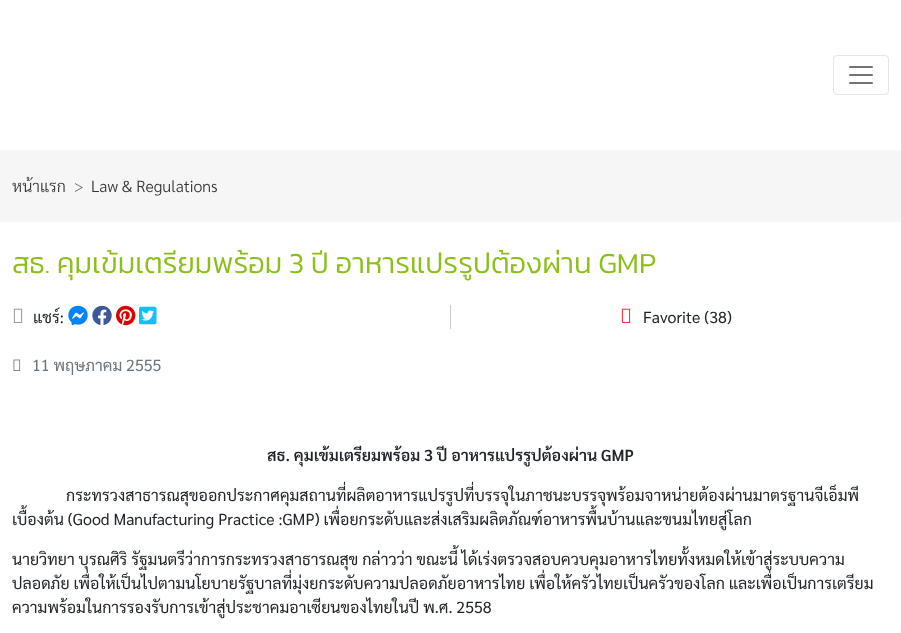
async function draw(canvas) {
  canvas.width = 901;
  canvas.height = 633;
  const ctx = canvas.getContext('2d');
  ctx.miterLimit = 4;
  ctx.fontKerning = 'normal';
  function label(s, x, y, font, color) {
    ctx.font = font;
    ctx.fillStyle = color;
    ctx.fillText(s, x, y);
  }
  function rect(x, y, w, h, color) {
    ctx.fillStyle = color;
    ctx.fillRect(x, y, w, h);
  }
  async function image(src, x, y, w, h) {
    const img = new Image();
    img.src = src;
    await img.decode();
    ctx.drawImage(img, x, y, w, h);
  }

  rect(0, 0, 901, 633, '#fff');
  ctx.beginPath();
  ctx.roundRect(833.5, 55.5, 55, 39, 3.5);
  ctx.strokeStyle = '#e6e6e6';
  ctx.stroke();
  await image('assets/img1.png', 849, 66, 24, 18);
  rect(0, 150, 901, 72, '#f6f6f6');
  label('หน้าแรก', 12, 192, '300 16px Sarabun', '#333');
  label('>', 74, 192, '300 16px Sarabun', '#6c757d');
  label('Law & Regulations', 91, 192, '300 16px Sarabun', '#333');
  label('สธ. คุมเข้มเตรียมพร้อม 3 ปี อาหารแปรรูปต้องผ่าน GMP', 12, 273, '300 29.3px Kanit', '#8cbf1a');
  rect(450, 305, 1, 24, '#ccc');
  await image('assets/img2.png', 13, 308, 10, 15);
  label('แชร์:', 33, 323, '16px Sarabun', '#212529');
  await image('assets/img3.png', 68, 305, 20, 21);
  await image('assets/img4.png', 92, 305, 20, 20);
  await image('assets/img5.png', 116, 305, 20, 21);
  await image('assets/img6.png', 139, 306, 18, 19);
  await image('assets/img7.png', 621, 308, 10, 15);
  label('Favorite (38)', 643, 323, '16px Sarabun', '#212529');
  await image('assets/img8.png', 13, 359, 8, 12);
  label('11 พฤษภาคม 2555', 32, 371, '16px Sarabun', '#6c757d');
  label('สธ. คุมเข้มเตรียมพร้อม 3 ปี อาหารแปรรูปต้องผ่าน GMP', 267, 461, '600 16px Sarabun', '#212529');
  label('กระทรวงสาธารณสุขออกประกาศคุมสถานที่ผลิตอาหารแปรรูปที่บรรจุในภาชนะบรรจุพร้อมจาหน่ายต้องผ่านมาตรฐานจีเอ็มพี', 66, 501, '16px Sarabun', '#212529');
  label('เบื้องต้น (Good Manufacturing Practice :GMP) เพื่อยกระดับและส่งเสริมผลิตภัณฑ์อาหารพื้นบ้านและขนมไทยสู่โลก', 12, 525, '16px Sarabun', '#212529');
  label('นายวิทยา บุรณศิริ รัฐมนตรีว่าการกระทรวงสาธารณสุข กล่าวว่า ขณะนี้ ได้เร่งตรวจสอบควบคุมอาหารไทยทั้งหมดให้เข้าสู่ระบบความ', 12, 565, '16px Sarabun', '#212529');
  label('ปลอดภัย เพื่อให้เป็นไปตามนโยบายรัฐบาลที่มุ่งยกระดับความปลอดภัยอาหารไทย เพื่อให้ครัวไทยเป็นครัวของโลก และเพื่อเป็นการเตรียม', 12, 589, '16px Sarabun', '#212529');
  label('ความพร้อมในการรองรับการเข้าสู่ประชาคมอาเซียนของไทยในปี พ.ศ. 2558', 12, 613, '16px Sarabun', '#212529');
}

draw(document.querySelector('canvas'));
